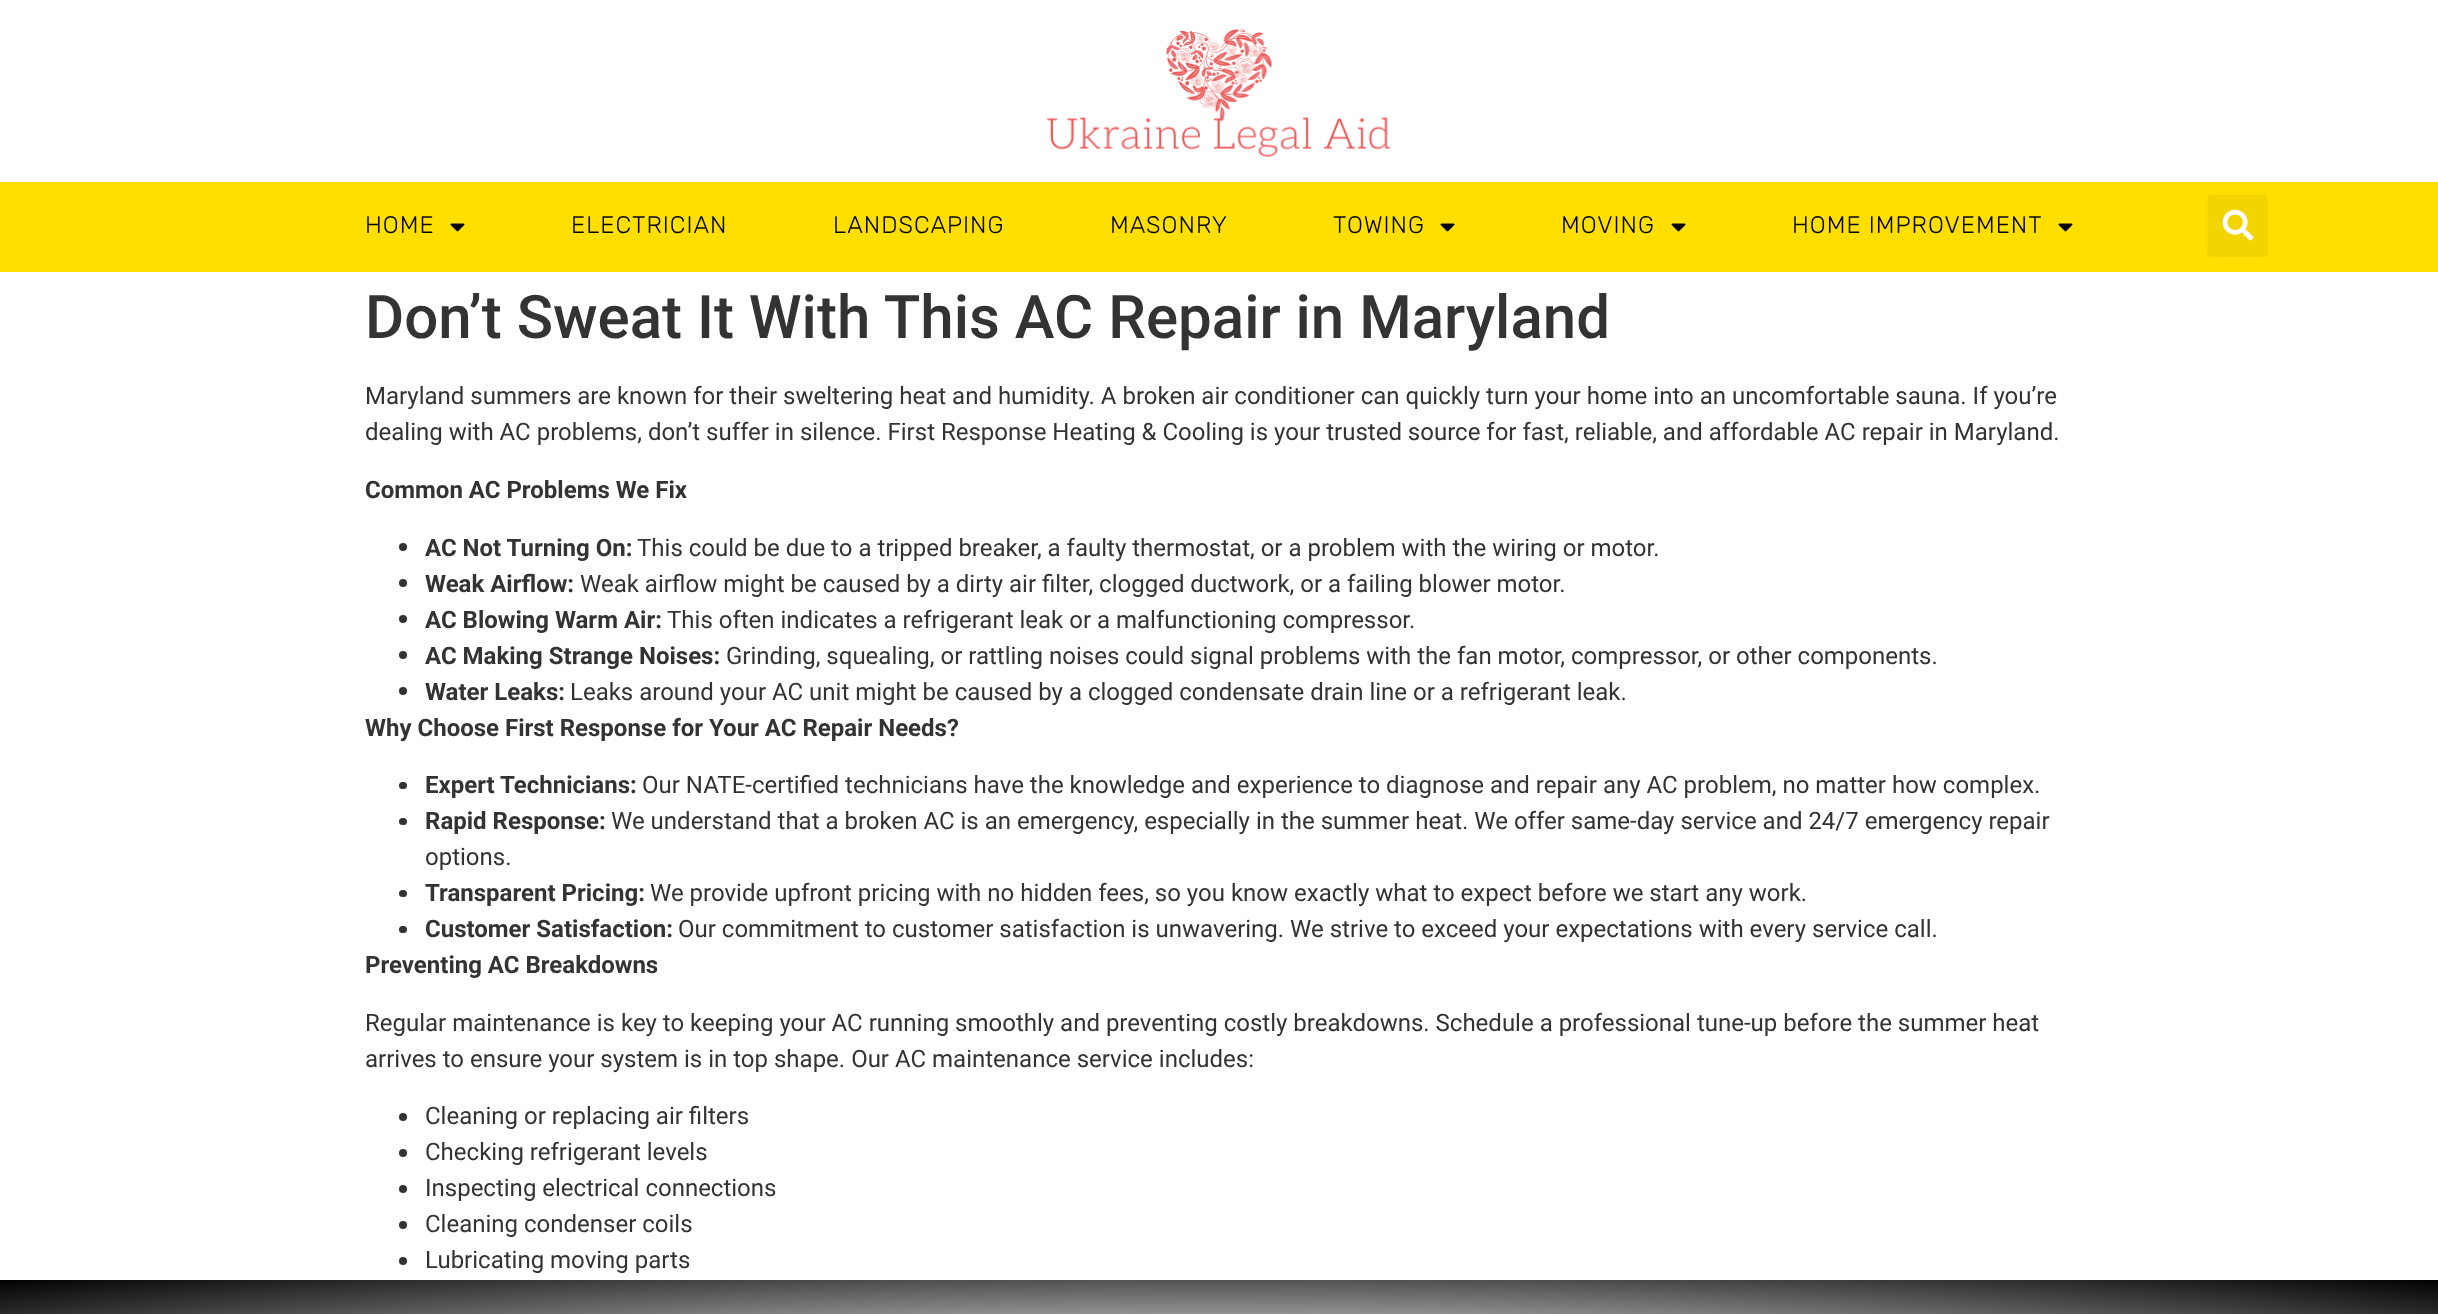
async function draw(canvas) {
  canvas.width = 2438;
  canvas.height = 1314;
  const ctx = canvas.getContext('2d');
  ctx.miterLimit = 4;
  ctx.fontKerning = 'normal';
  function label(s, x, y, font, color) {
    ctx.font = font;
    ctx.fillStyle = color;
    ctx.fillText(s, x, y);
  }
  function rect(x, y, w, h, color) {
    ctx.fillStyle = color;
    ctx.fillRect(x, y, w, h);
  }
  function roundedRect(x, y, w, h, r, color) {
    ctx.fillStyle = color;
    ctx.beginPath();
    ctx.roundRect(x, y, w, h, r);
    ctx.fill();
  }
  async function image(src, x, y, w, h) {
    const img = new Image();
    img.src = src;
    await img.decode();
    ctx.drawImage(img, x, y, w, h);
  }
  let gradient;

  rect(0, 0, 2438, 1314, '#fff');
  await image('assets/img1.png', 1047, 29, 344, 128);
  rect(0, 182, 2438, 90, '#ffdf00');
  ctx.letterSpacing = '1px';
  label('HOME', 365, 233, '300 24px Rubik', '#000');
  await image('assets/img2.png', 450, 223, 15, 9);
  label('ELECTRICIAN', 571, 233, '300 24px Rubik', '#000');
  label('LANDSCAPING', 833, 233, '300 24px Rubik', '#000');
  label('MASONRY', 1110, 233, '300 24px Rubik', '#000');
  label('TOWING', 1333, 233, '300 24px Rubik', '#000');
  await image('assets/img2.png', 1440, 223, 15, 9);
  label('MOVING', 1561, 233, '300 24px Rubik', '#000');
  await image('assets/img2.png', 1671, 223, 15, 9);
  label('HOME IMPROVEMENT', 1792, 233, '300 24px Rubik', '#000');
  await image('assets/img2.png', 2058, 223, 15, 9);
  roundedRect(2207, 195, 61, 62, 5, '#f2d400');
  await image('assets/img3.png', 2222, 209, 32, 32);
  ctx.letterSpacing = '0px';
  label('Don’t Sweat It With This AC Repair in Maryland', 365, 338, '500 60px Roboto', '#333');
  label('Maryland summers are known for their sweltering heat and humidity. A broken air conditioner can quickly turn your home into an uncomfortable sauna. If you’re', 365, 404, '24px Roboto', '#333');
  label('dealing with AC problems, don’t suffer in silence. First Response Heating & Cooling is your trusted source for fast, reliable, and affordable AC repair in Maryland.', 365, 440, '24px Roboto', '#333');
  label('Common AC Problems We Fix', 365, 498, 'bold 24px Roboto', '#333');
  ctx.beginPath();
  ctx.arc(403, 547, 4, 0, 2 * Math.PI);
  ctx.fill();
  label('AC Not Turning On:', 425, 556, 'bold 24px Roboto', '#333');
  label('This could be due to a tripped breaker, a faulty thermostat, or a problem with the wiring or motor.', 637, 556, '24px Roboto', '#333');
  ctx.beginPath();
  ctx.arc(403, 583, 4, 0, 2 * Math.PI);
  ctx.fill();
  label('Weak Airflow:', 425, 592, 'bold 24px Roboto', '#333');
  label('Weak airflow might be caused by a dirty air filter, clogged ductwork, or a failing blower motor.', 580, 592, '24px Roboto', '#333');
  ctx.beginPath();
  ctx.arc(403, 619, 4, 0, 2 * Math.PI);
  ctx.fill();
  label('AC Blowing Warm Air:', 425, 628, 'bold 24px Roboto', '#333');
  label('This often indicates a refrigerant leak or a malfunctioning compressor.', 667, 628, '24px Roboto', '#333');
  ctx.beginPath();
  ctx.arc(403, 655, 4, 0, 2 * Math.PI);
  ctx.fill();
  label('AC Making Strange Noises:', 425, 664, 'bold 24px Roboto', '#333');
  label('Grinding, squealing, or rattling noises could signal problems with the fan motor, compressor, or other components.', 726, 664, '24px Roboto', '#333');
  ctx.beginPath();
  ctx.arc(403, 691, 4, 0, 2 * Math.PI);
  ctx.fill();
  label('Water Leaks:', 425, 700, 'bold 24px Roboto', '#333');
  label('Leaks around your AC unit might be caused by a clogged condensate drain line or a refrigerant leak.', 570, 700, '24px Roboto', '#333');
  label('Why Choose First Response for Your AC Repair Needs?', 365, 736, 'bold 24px Roboto', '#333');
  roundedRect(399, 782, 8, 7, 3.5, '#333');
  label('Expert Technicians:', 425, 793, 'bold 24px Roboto', '#333');
  label('Our NATE-certified technicians have the knowledge and experience to diagnose and repair any AC problem, no matter how complex.', 642, 793, '24px Roboto', '#333');
  roundedRect(399, 818, 8, 7, 3.5, '#333');
  label('Rapid Response:', 425, 829, 'bold 24px Roboto', '#333');
  label('We understand that a broken AC is an emergency, especially in the summer heat. We offer same-day service and 24/7 emergency repair', 611, 829, '24px Roboto', '#333');
  label('options.', 425, 865, '24px Roboto', '#333');
  roundedRect(399, 890, 8, 7, 3.5, '#333');
  label('Transparent Pricing:', 425, 901, 'bold 24px Roboto', '#333');
  label('We provide upfront pricing with no hidden fees, so you know exactly what to expect before we start any work.', 650, 901, '24px Roboto', '#333');
  roundedRect(399, 926, 8, 7, 3.5, '#333');
  label('Customer Satisfaction:', 425, 937, 'bold 24px Roboto', '#333');
  label('Our commitment to customer satisfaction is unwavering. We strive to exceed your expectations with every service call.', 678, 937, '24px Roboto', '#333');
  label('Preventing AC Breakdowns', 365, 973, 'bold 24px Roboto', '#333');
  label('Regular maintenance is key to keeping your AC running smoothly and preventing costly breakdowns. Schedule a professional tune-up before the summer heat', 365, 1031, '24px Roboto', '#333');
  label('arrives to ensure your system is in top shape. Our AC maintenance service includes:', 365, 1067, '24px Roboto', '#333');
  ctx.beginPath();
  ctx.arc(403, 1117, 4, 0, 2 * Math.PI);
  ctx.fill();
  label('Cleaning or replacing air filters', 425, 1124, '24px Roboto', '#333');
  ctx.beginPath();
  ctx.arc(403, 1153, 4, 0, 2 * Math.PI);
  ctx.fill();
  label('Checking refrigerant levels', 425, 1160, '24px Roboto', '#333');
  ctx.beginPath();
  ctx.arc(403, 1189, 4, 0, 2 * Math.PI);
  ctx.fill();
  label('Inspecting electrical connections', 425, 1196, '24px Roboto', '#333');
  ctx.beginPath();
  ctx.arc(403, 1225, 4, 0, 2 * Math.PI);
  ctx.fill();
  label('Cleaning condenser coils', 425, 1232, '24px Roboto', '#333');
  ctx.beginPath();
  ctx.arc(403, 1261, 4, 0, 2 * Math.PI);
  ctx.fill();
  label('Lubricating moving parts', 425, 1268, '24px Roboto', '#333');
  gradient = ctx.createRadialGradient(1220, 15833.44, 0, 1220, 15833.44, 1725);
  gradient.addColorStop(0.17, '#e8e8e8');
  gradient.addColorStop(1, '#000');
  ctx.fillStyle = gradient;
  ctx.beginPath();
  ctx.rect(0, 1280, 2438, 34);
  ctx.save();
  ctx.clip();
  ctx.scale(1, 151 / 1725);
  ctx.fillRect(0, 0, 2438, 15011);
  ctx.restore();
}

draw(document.querySelector('canvas'));
